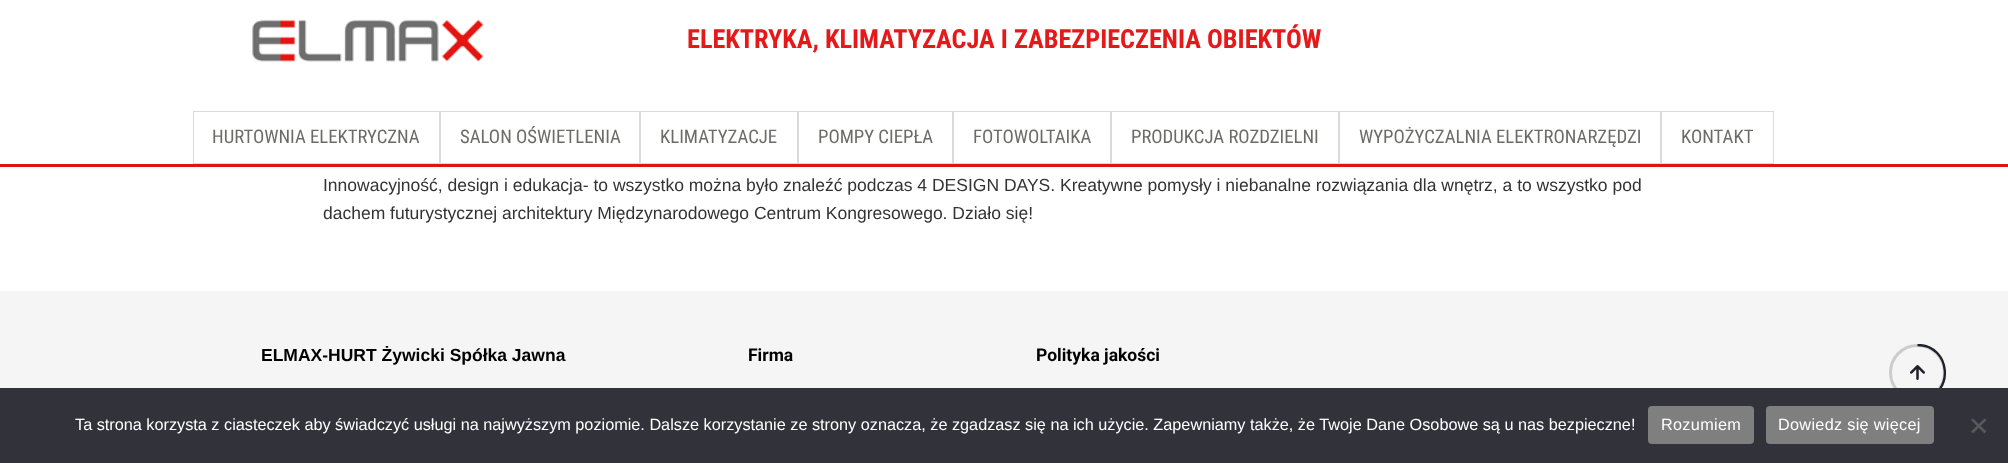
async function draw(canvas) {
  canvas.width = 2008;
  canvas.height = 463;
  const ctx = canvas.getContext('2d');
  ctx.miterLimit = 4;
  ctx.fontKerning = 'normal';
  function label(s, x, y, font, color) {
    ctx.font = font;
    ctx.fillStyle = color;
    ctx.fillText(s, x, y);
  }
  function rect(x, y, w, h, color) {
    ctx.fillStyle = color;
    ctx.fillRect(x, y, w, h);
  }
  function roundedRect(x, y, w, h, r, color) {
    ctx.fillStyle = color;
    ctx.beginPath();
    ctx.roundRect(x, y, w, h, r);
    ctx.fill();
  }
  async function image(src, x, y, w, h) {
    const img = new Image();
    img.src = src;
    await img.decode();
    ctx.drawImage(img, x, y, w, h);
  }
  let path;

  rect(0, 0, 2008, 463, '#fff');
  rect(0, 164, 2008, 3, '#dd1414');
  await image('assets/img1.png', 252, 19, 232, 43);
  label('ELEKTRYKA, KLIMATYZACJA I ZABEZPIECZENIA OBIEKTÓW', 687, 48, 'bold 26.25px Roboto Condensed', '#e5191a');
  ctx.strokeStyle = '#dadada';
  ctx.strokeRect(193.5, 111.5, 246, 52);
  label('HURTOWNIA ELEKTRYCZNA', 212, 143, '18.75px Roboto Condensed', '#6b6b68');
  ctx.strokeRect(440.5, 111.5, 199, 52);
  label('SALON OŚWIETLENIA', 460, 143, '18.75px Roboto Condensed', '#6b6b68');
  ctx.strokeRect(640.5, 111.5, 157, 52);
  label('KLIMATYZACJE', 660, 143, '18.75px Roboto Condensed', '#6b6b68');
  ctx.strokeRect(798.5, 111.5, 154, 52);
  label('POMPY CIEPŁA', 818, 143, '18.75px Roboto Condensed', '#6b6b68');
  ctx.strokeRect(953.5, 111.5, 157, 52);
  label('FOTOWOLTAIKA', 973, 143, '18.75px Roboto Condensed', '#6b6b68');
  ctx.strokeRect(1111.5, 111.5, 227, 52);
  label('PRODUKCJA ROZDZIELNI', 1131, 143, '18.75px Roboto Condensed', '#6b6b68');
  ctx.strokeRect(1339.5, 111.5, 321, 52);
  label('WYPOŻYCZALNIA ELEKTRONARZĘDZI', 1359, 143, '18.75px Roboto Condensed', '#6b6b68');
  ctx.strokeRect(1661.5, 111.5, 112, 52);
  label('KONTAKT', 1681, 143, '18.75px Roboto Condensed', '#6b6b68');
  label('Innowacyjność, design i edukacja- to wszystko można było znaleźć podczas 4 DESIGN DAYS. Kreatywne pomysły i niebanalne rozwiązania dla wnętrz, a to wszystko pod', 323, 191, '17.5px Liberation Sans', '#333');
  label('dachem futurystycznej architektury Międzynarodowego Centrum Kongresowego. Działo się!', 323, 219, '17.5px Liberation Sans', '#333');
  rect(0, 291, 2008, 97, '#f5f5f5');
  label('ELMAX-HURT Żywicki Spółka Jawna', 261, 361, 'bold 17.5px Liberation Sans', '#000');
  label('Firma', 748, 361, 'bold 17.5px Roboto', '#000');
  label('Polityka jakości', 1036, 361, 'bold 17.5px Roboto', '#000');
  ctx.beginPath();
  ctx.arc(1917.5, 372.5, 27, 0, 2 * Math.PI);
  ctx.strokeStyle = '#ccc';
  ctx.lineWidth = 3;
  ctx.stroke();
  ctx.save();
  ctx.beginPath();
  ctx.rect(1889, 344, 57, 57);
  ctx.clip();
  path = new Path2D('M1917.5 345C1951 345 1955 394 1922.5 399.5');
  ctx.strokeStyle = '#1f2029';
  ctx.lineWidth = 2.3;
  ctx.stroke(path);
  ctx.restore();
  await image('assets/img2.png', 1910, 365, 15, 15);
  rect(0, 388, 2008, 75, '#32323a');
  label('Ta strona korzysta z ciasteczek aby świadczyć usługi na najwyższym poziomie. Dalsze korzystanie ze strony oznacza, że zgadzasz się na ich użycie. Zapewniamy także, że Twoje Dane Osobowe są u nas bezpieczne!', 75, 430, '16.25px Liberation Sans', '#fff');
  roundedRect(1648, 406, 106, 38, 4, '#7f7f7f');
  ctx.letterSpacing = '0.3px';
  label('Rozumiem', 1661, 430, '16.25px Liberation Sans', '#fff');
  roundedRect(1766, 406, 168, 38, 4, '#7f7f7f');
  label('Dowiedz się więcej', 1778, 430, '16.25px Liberation Sans', '#fff');
  ctx.fillStyle = '#59595d';
  path = new Path2D('M1984.5 418.5L1986.5 420L1973 433.5L1971 431.5Z');
  ctx.fill(path);
  path = new Path2D('M1971 420L1973 418.5L1986.5 431.5L1984.5 433.5Z');
  ctx.fill(path);
}

draw(document.querySelector('canvas'));
